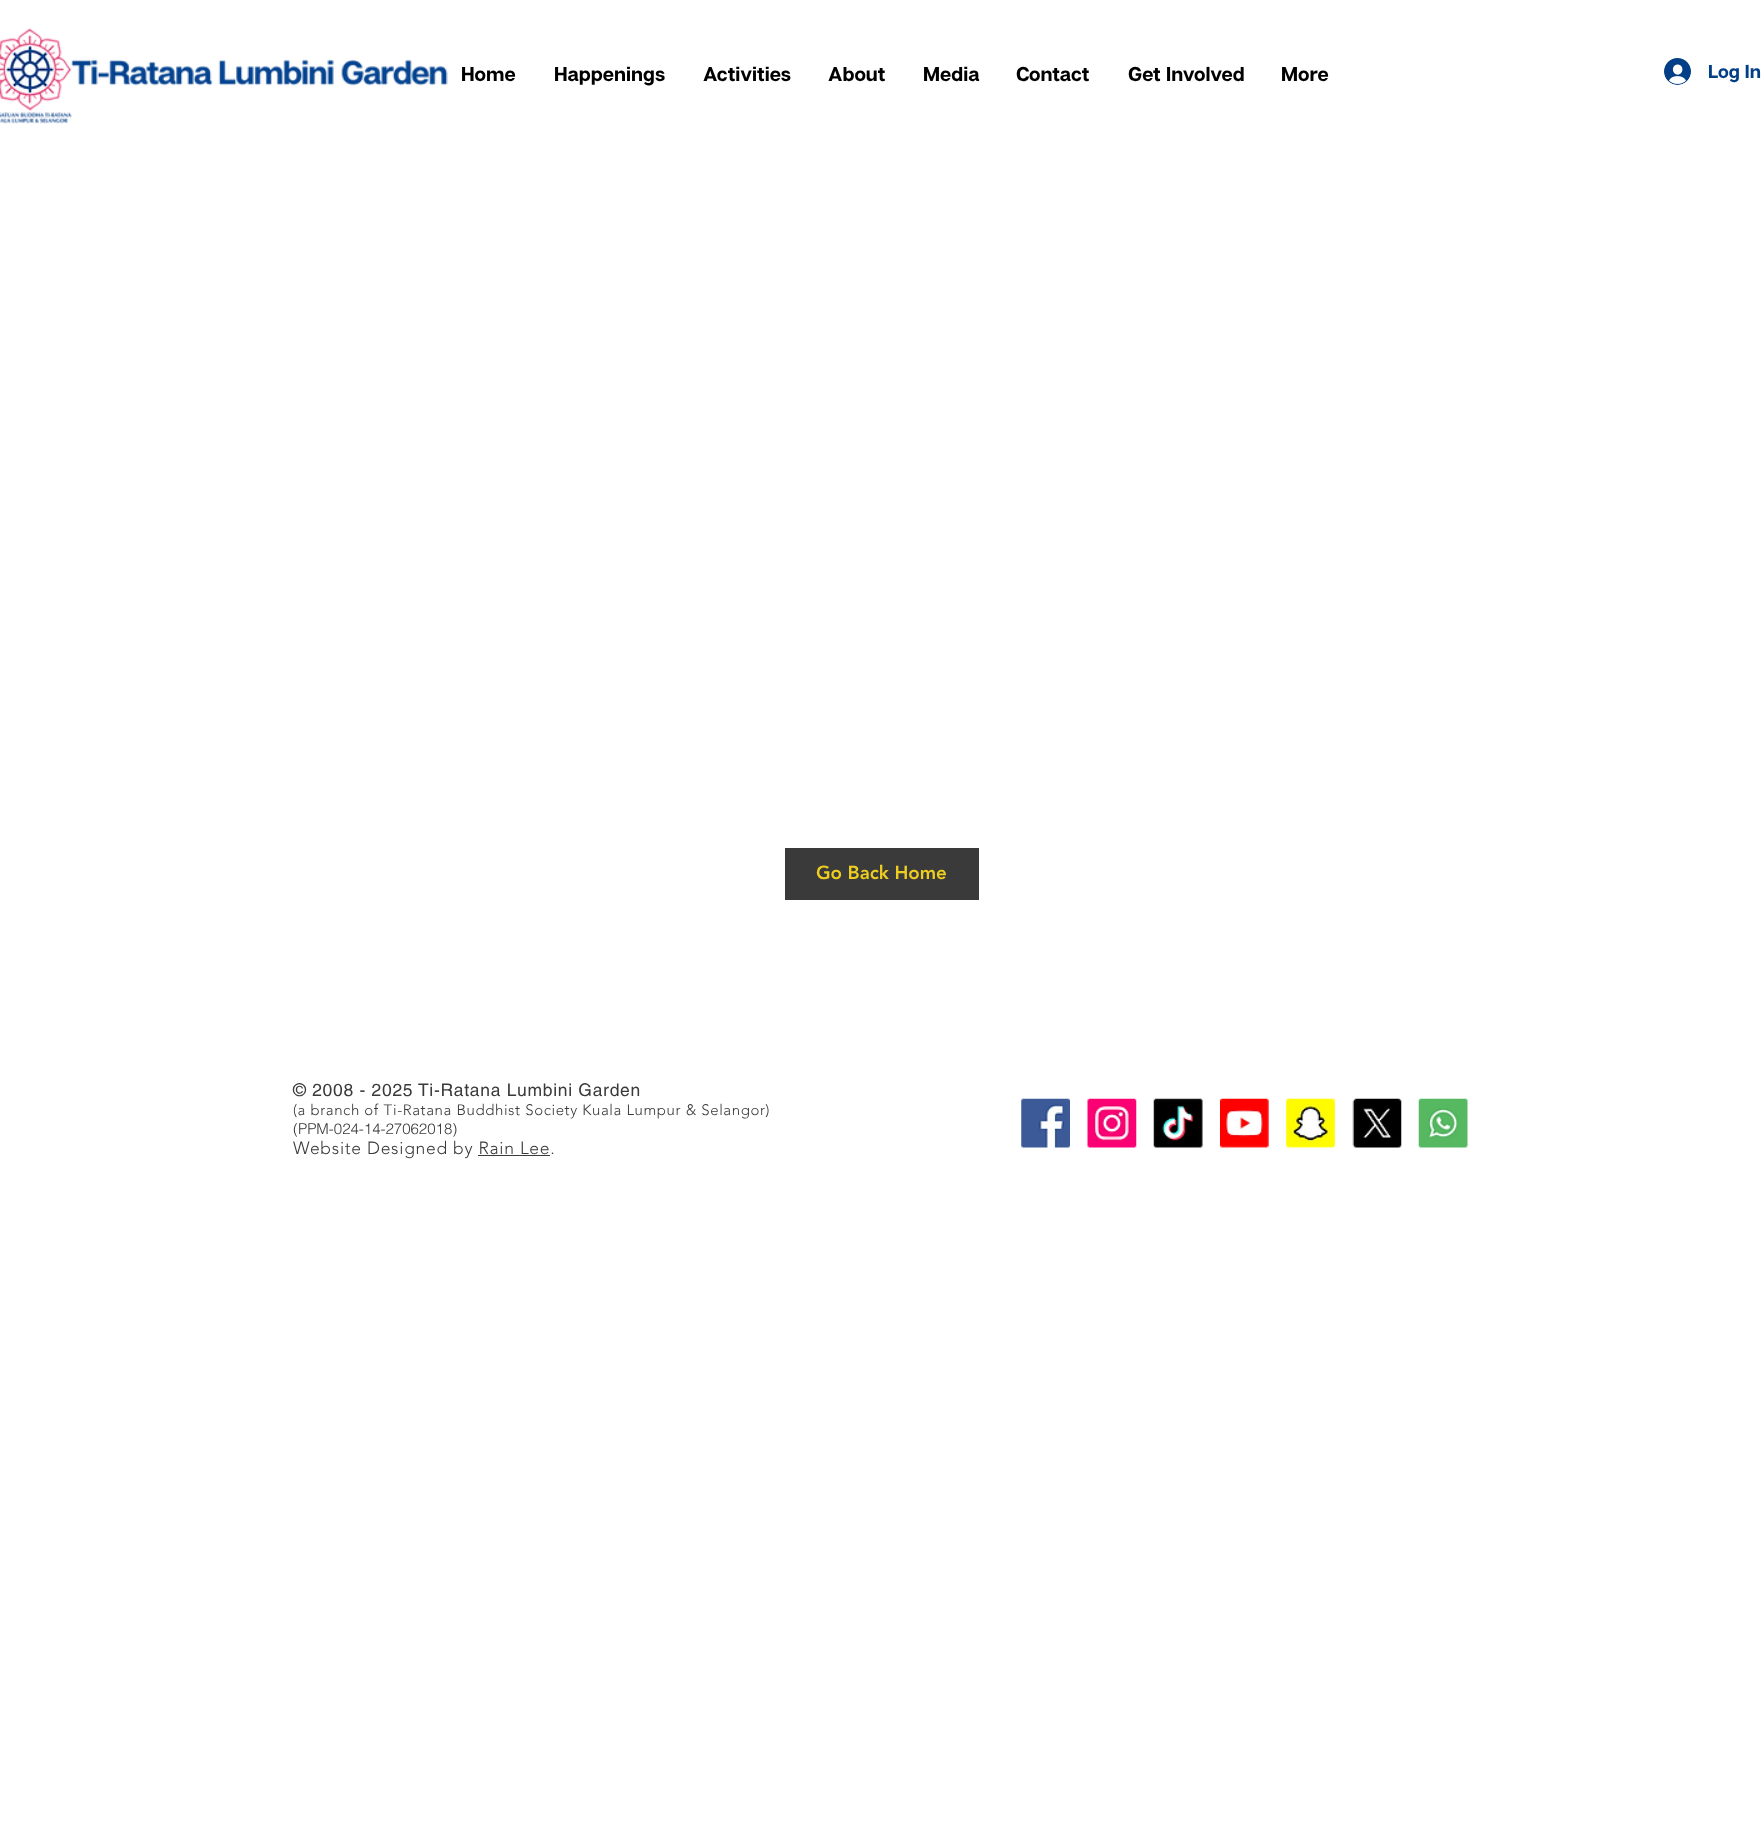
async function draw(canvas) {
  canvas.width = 1764;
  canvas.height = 1825;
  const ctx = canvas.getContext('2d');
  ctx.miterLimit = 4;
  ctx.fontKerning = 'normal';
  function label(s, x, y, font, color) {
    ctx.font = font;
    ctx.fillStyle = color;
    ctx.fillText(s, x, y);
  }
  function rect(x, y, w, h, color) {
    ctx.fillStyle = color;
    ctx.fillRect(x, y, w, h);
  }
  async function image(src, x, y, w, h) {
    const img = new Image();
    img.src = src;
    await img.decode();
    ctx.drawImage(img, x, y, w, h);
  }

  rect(0, 0, 1764, 1825, '#fff');
  label('Home', 461, 81, 'bold 20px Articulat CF', '#000');
  label('Happenings', 554, 81, 'bold 20px Articulat CF', '#000');
  label('Activities', 703, 81, 'bold 20px Articulat CF', '#000');
  label('About', 828, 81, 'bold 20px Articulat CF', '#000');
  label('Media', 923, 81, 'bold 20px Articulat CF', '#000');
  label('Contact', 1016, 81, 'bold 20px Articulat CF', '#000');
  label('Get Involved', 1128, 81, 'bold 20px Articulat CF', '#000');
  label('More', 1281, 81, 'bold 20px Articulat CF', '#000');
  await image('assets/img1.png', 0, 28, 448, 96);
  await image('assets/img2.png', 1664, 58, 27, 27);
  label('Log In', 1708, 78, 'bold 18.75px Articulat CF', '#023f87');
  rect(785, 848, 194, 52, '#3b3a3a');
  label('Go Back Home', 816, 879, '900 18.75px "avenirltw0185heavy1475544"', '#edcd1f');
  ctx.letterSpacing = '0.7px';
  label('© 2008 - 2025 Ti-Ratana Lumbini Garden', 293, 1096, '17.5px helvetica', '#3b3a3a');
  ctx.letterSpacing = '0.6px';
  label('(a branch of Ti-Ratana Buddhist Society Kuala Lumpur & Selangor)', 293, 1115, '300 15px "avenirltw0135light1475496"', '#3b3a3a');
  ctx.letterSpacing = '0px';
  label('(PPM-024-14-27062018)', 293, 1134, '300 15px helvetica', '#3b3a3a');
  ctx.letterSpacing = '0.7px';
  label('Website Designed by Rain Lee.', 293, 1154, '300 17.5px "avenirltw0135light1475496"', '#3b3a3a');
  rect(478, 1155, 72, 1, '#3b3a3a');
  await image('assets/img3.png', 1021, 1098, 49, 50);
  await image('assets/img4.png', 1087, 1098, 50, 50);
  await image('assets/img5.png', 1153, 1098, 50, 50);
  await image('assets/img6.png', 1220, 1098, 49, 50);
  await image('assets/img7.png', 1286, 1098, 49, 50);
  await image('assets/img8.png', 1352, 1098, 50, 50);
  await image('assets/img9.png', 1418, 1098, 50, 50);
}

draw(document.querySelector('canvas'));
